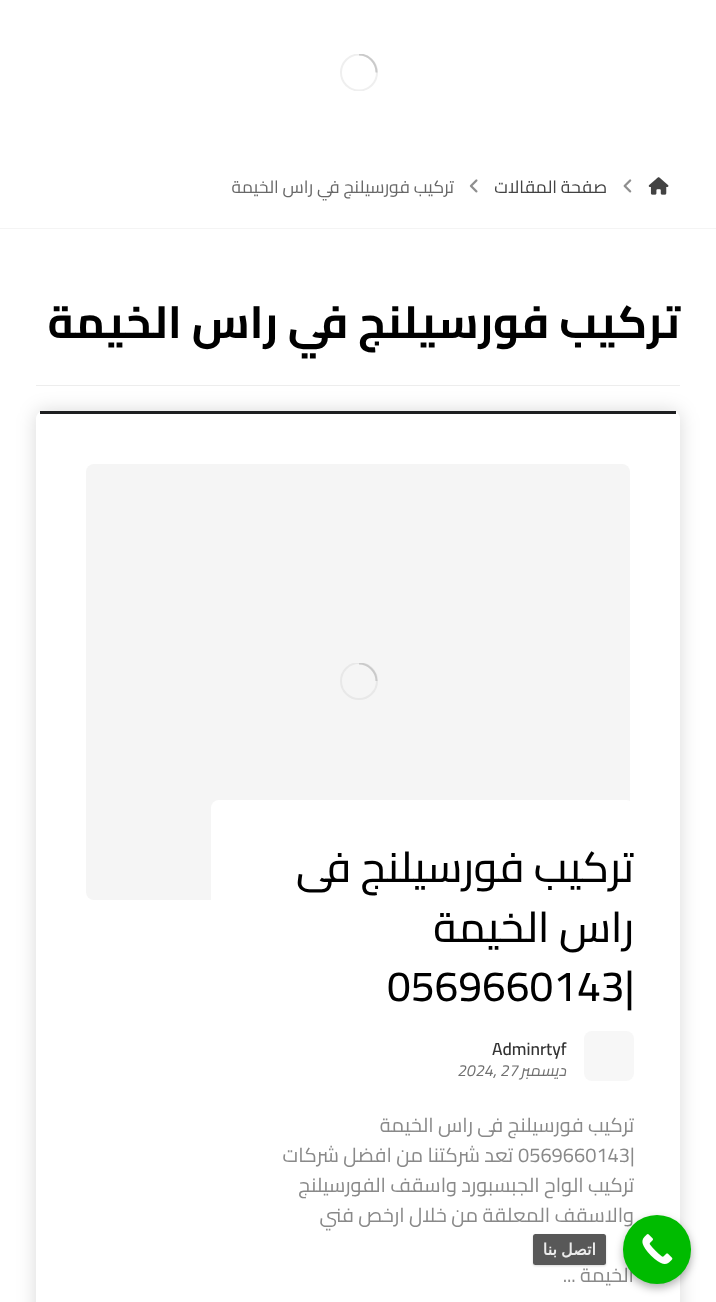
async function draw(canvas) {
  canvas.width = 716;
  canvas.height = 1302;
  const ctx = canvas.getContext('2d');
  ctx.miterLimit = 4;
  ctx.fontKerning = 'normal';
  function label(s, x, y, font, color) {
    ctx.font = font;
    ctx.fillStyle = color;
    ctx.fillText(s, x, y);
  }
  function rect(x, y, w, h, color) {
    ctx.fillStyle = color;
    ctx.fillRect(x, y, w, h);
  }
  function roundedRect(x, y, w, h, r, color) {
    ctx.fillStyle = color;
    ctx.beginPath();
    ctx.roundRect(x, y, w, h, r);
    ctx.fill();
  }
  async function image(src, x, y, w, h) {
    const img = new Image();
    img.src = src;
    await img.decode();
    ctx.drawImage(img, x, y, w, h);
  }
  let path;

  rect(0, 0, 716, 1302, '#fff');
  ctx.save();
  ctx.beginPath();
  ctx.rect(340, 54, 38, 37);
  ctx.clip();
  ctx.beginPath();
  ctx.arc(359, 72.5, 18, 0, 2 * Math.PI);
  ctx.strokeStyle = '#efefef';
  ctx.lineWidth = 2;
  ctx.stroke();
  path = new Path2D('M376.5 72.5C376.5 62.5 368.5 54.5 359 54.5');
  ctx.strokeStyle = '#cacaca';
  ctx.stroke(path);
  ctx.restore();
  rect(0, 228, 716, 1, '#f4f4f4');
  await image('assets/img1.png', 648, 177, 21, 18);
  await image('assets/img2.png', 623, 179, 9, 14);
  ctx.direction = 'rtl';
  label('صفحة المقالات', 607, 193, '17.5px Cairo', '#424242');
  await image('assets/img3.png', 469, 179, 9, 14);
  label('تركيب فورسيلنج في راس الخيمة', 454, 193, '17.5px Cairo', '#686868');
  rect(36, 385, 644, 1, '#ededed');
  label('تركيب فورسيلنج في راس الخيمة', 680, 338, 'bold 45px Cairo', '#000');
  ctx.save();
  path = new Path2D('M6 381H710V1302H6ZM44 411H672C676.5 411 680 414.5 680 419V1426C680 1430.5 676.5 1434 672 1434H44C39.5 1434 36 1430.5 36 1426V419C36 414.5 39.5 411 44 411Z');
  ctx.clip(path, 'evenodd');
  ctx.fillStyle = '#00000026';
  ctx.filter = 'blur(9.5px)';
  ctx.beginPath();
  ctx.roundRect(36, 411, 644, 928, 8);
  ctx.fill();
  ctx.filter = 'none';
  ctx.restore();
  rect(40, 411, 636, 3, '#1d1e20');
  roundedRect(86, 464, 544, 436, 8, '#f5f5f5');
  ctx.save();
  ctx.beginPath();
  ctx.rect(340, 663, 38, 37);
  ctx.clip();
  ctx.beginPath();
  ctx.arc(359, 681, 18, 0, 2 * Math.PI);
  ctx.strokeStyle = '#e8e8e8';
  ctx.lineWidth = 2;
  ctx.stroke();
  path = new Path2D('M376.5 681C376.5 671.5 368.5 663.5 359 663.5');
  ctx.strokeStyle = '#cacaca';
  ctx.stroke(path);
  ctx.restore();
  roundedRect(211, 800, 423, 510, 8, '#fff');
  label('تركيب فورسيلنج فى', 634, 882, '500 42.5px Cairo', '#000');
  label('راس الخيمة', 634, 942, '500 42.5px Cairo', '#000');
  ctx.direction = 'ltr';
  label('0569660143|', 387, 1001, '500 42.5px Cairo', '#000');
  roundedRect(584, 1031, 50, 50, 8, '#f7f7f7');
  label('Adminrtyf', 492, 1055, '600 17.5px Cairo', '#333');
  ctx.direction = 'rtl';
  label('ديسمبر', 567, 1076, 'italic 16px Cairo', '#707070');
  ctx.direction = 'ltr';
  label('2024, 27', 458, 1076, 'italic 16px Cairo', '#707070');
  ctx.direction = 'rtl';
  label('تركيب فورسيلنج فى راس الخيمة', 634, 1132, '20px Cairo', '#898989');
  ctx.direction = 'ltr';
  label('0569660143|', 518, 1162, '20px Cairo', '#898989');
  ctx.direction = 'rtl';
  label('تعد شركتنا من افضل شركات', 513, 1162, '20px Cairo', '#898989');
  label('تركيب الواح الجبسبورد واسقف الفورسيلنج', 634, 1192, '20px Cairo', '#898989');
  label('والاسقف المعلقة من خلال ارخص فني', 634, 1222, '20px Cairo', '#898989');
  label('الخيمة ...', 634, 1282, '20px Cairo', '#898989');
  ctx.fillStyle = '#0000004d';
  ctx.filter = 'blur(4px)';
  ctx.beginPath();
  ctx.roundRect(623, 1219, 68, 69, 34);
  ctx.fill();
  ctx.filter = 'none';
  roundedRect(623, 1215, 68, 69, 34, '#0b0');
  await image('assets/img4.png', 642, 1234, 31, 30);
  ctx.save();
  path = new Path2D('M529 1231H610V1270H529ZM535.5 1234H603.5C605 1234 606 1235 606 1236.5V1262.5C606 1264 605 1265 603.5 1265H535.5C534 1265 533 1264 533 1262.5V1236.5C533 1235 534 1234 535.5 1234Z');
  ctx.clip(path, 'evenodd');
  ctx.fillStyle = '#00000026';
  ctx.filter = 'blur(1px)';
  ctx.beginPath();
  ctx.roundRect(533, 1235, 73, 31, 2.5);
  ctx.fill();
  ctx.filter = 'none';
  ctx.restore();
  roundedRect(533, 1234, 73, 31, 2.5, '#464646e6');
  ctx.wordSpacing = '-1px';
  label('اتصل بنا', 596, 1255, 'bold 16px DejaVu Sans', '#ececec');
}

draw(document.querySelector('canvas'));
